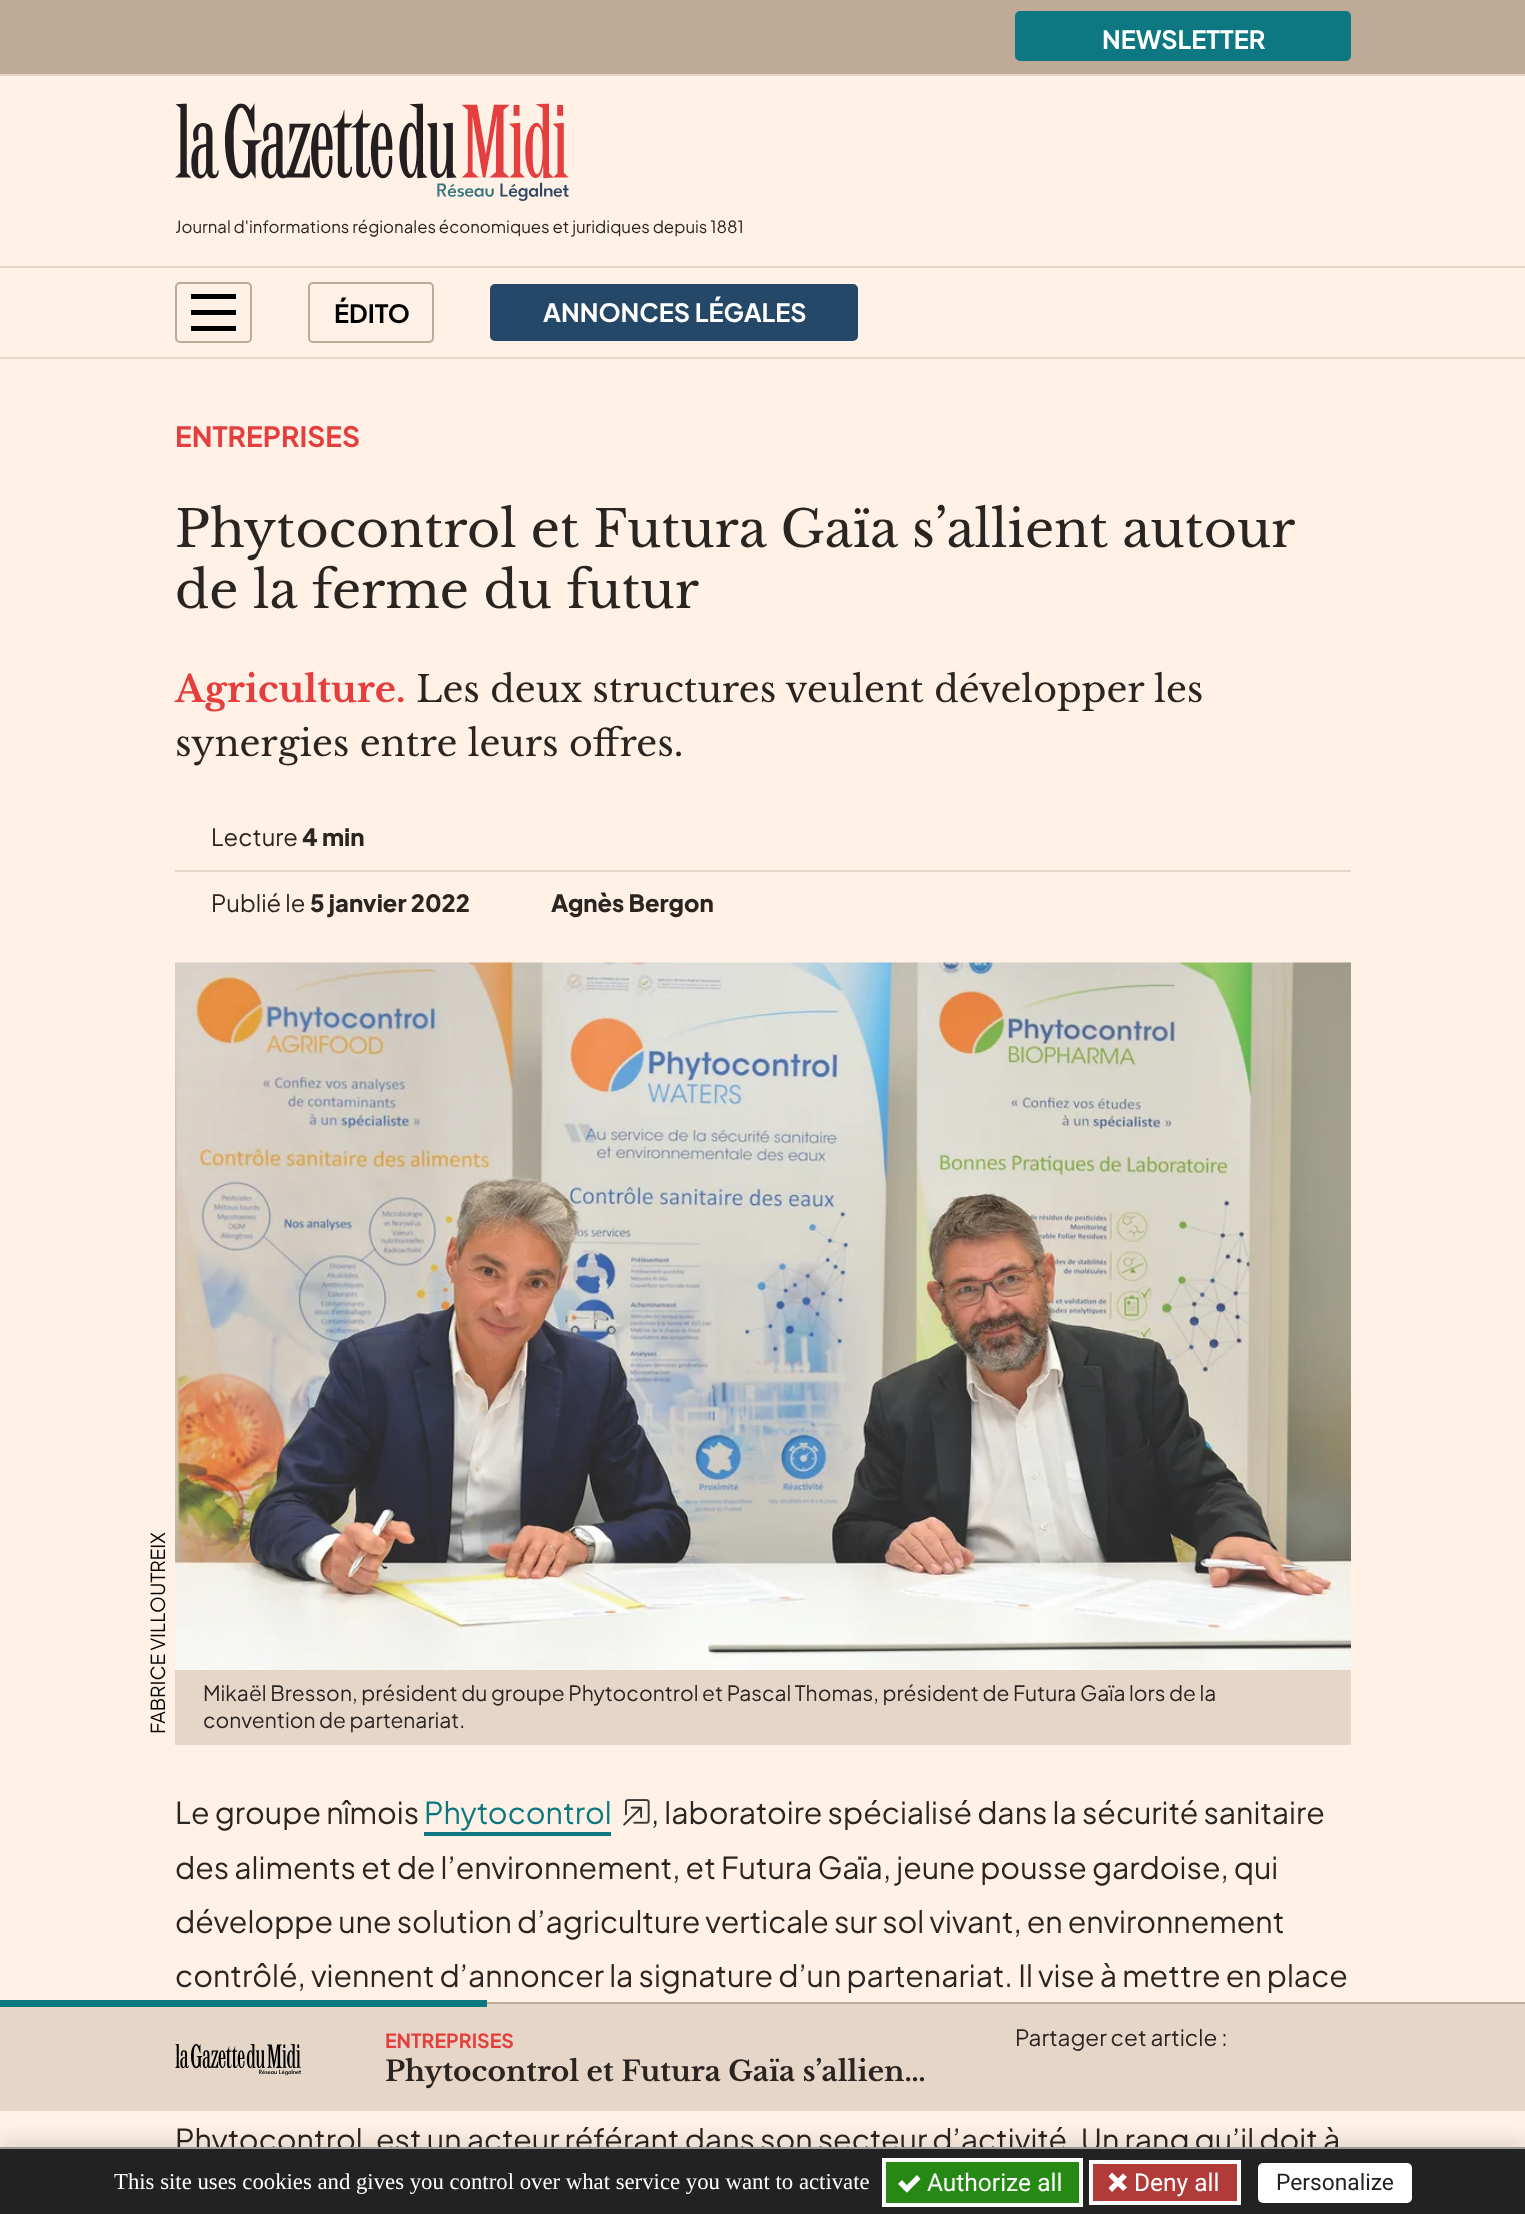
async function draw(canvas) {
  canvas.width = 1525;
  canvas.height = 2214;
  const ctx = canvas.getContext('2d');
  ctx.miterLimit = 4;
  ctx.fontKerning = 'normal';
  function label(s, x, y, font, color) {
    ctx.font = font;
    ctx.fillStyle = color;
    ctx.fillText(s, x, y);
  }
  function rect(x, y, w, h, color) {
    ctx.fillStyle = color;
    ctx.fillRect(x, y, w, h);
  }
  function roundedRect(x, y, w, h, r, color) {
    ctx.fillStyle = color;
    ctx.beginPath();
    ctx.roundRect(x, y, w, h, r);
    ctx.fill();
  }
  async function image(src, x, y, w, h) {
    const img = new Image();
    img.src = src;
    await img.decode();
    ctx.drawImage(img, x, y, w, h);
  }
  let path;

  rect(0, 0, 1525, 2214, '#fff1e5');
  rect(0, 357, 1525, 2, '#e6d6c8');
  rect(0, 0, 1525, 74, '#bfaa97');
  ctx.fillStyle = '#0d7882';
  ctx.beginPath();
  ctx.roundRect(1016, 12, 334, 48, 4);
  ctx.fill();
  ctx.strokeStyle = '#0d7882';
  ctx.lineWidth = 2;
  ctx.stroke();
  label('NEWSLETTER', 1102, 49, 'bold 25.25px Plus Jakarta Sans', '#fff');
  rect(0, 74, 1525, 2, '#e6d6c8');
  rect(0, 266, 1525, 2, '#e6d6c8');
  await image('assets/img1.png', 175, 103, 394, 98);
  label('Journal d\'informations régionales économiques et juridiques depuis 1881', 175, 233, '16.8px Plus Jakarta Sans', '#2b2522');
  ctx.beginPath();
  ctx.roundRect(176, 283, 75, 59, 4);
  ctx.strokeStyle = '#bfaa97';
  ctx.stroke();
  rect(191, 294, 45, 5, '#000');
  rect(191, 310, 45, 5, '#000');
  rect(191, 326, 45, 5, '#000');
  ctx.beginPath();
  ctx.roundRect(309, 283, 124, 59, 4);
  ctx.stroke();
  label('ÉDITO', 334, 323, 'bold 25.25px Plus Jakarta Sans', '#000');
  ctx.fillStyle = '#254869';
  ctx.beginPath();
  ctx.roundRect(491, 285, 366, 55, 4);
  ctx.fill();
  ctx.strokeStyle = '#254869';
  ctx.stroke();
  label('ANNONCES LÉGALES', 543, 322, 'bold 25.25px Plus Jakarta Sans', '#fff');
  label('ENTREPRISES', 175, 447, 'bold 28px Plus Jakarta Sans', '#e53e3e');
  ctx.wordSpacing = '-0.5px';
  label('Phytocontrol et Futura Gaïa s’allient autour', 175, 547, '50.8px Libre Baskerville', '#2b2522');
  ctx.wordSpacing = '0px';
  label('de la ferme du futur', 175, 608, '50.8px Libre Baskerville', '#2b2522');
  label('Agriculture.', 175, 702, 'bold 36.4px Libre Baskerville', '#e53e3e');
  label('Les deux structures veulent développer les', 416, 702, '36.4px Libre Baskerville', '#2b2522');
  label('synergies entre leurs offres.', 175, 756, '36.4px Libre Baskerville', '#2b2522');
  rect(175, 870, 1176, 2, '#e6d6c8');
  label('Lecture', 211, 846, '23.75px Plus Jakarta Sans', '#2b2522');
  label('4 min', 302, 846, '800 23.75px Plus Jakarta Sans', '#2b2522');
  label('Publié le', 211, 912, '23.75px Plus Jakarta Sans', '#2b2522');
  label('5 janvier 2022', 310, 912, '800 23.75px Plus Jakarta Sans', '#2b2522');
  label('Agnès Bergon', 551, 912, '800 23.75px Plus Jakarta Sans', '#2b2522');
  await image('assets/img2.png', 175, 962, 1176, 708);
  rect(175, 1670, 1176, 75, '#e6d6c8');
  ctx.font = '19.25px Plus Jakarta Sans';
  ctx.fillStyle = '#000';
  ctx.save();
  ctx.translate(165, 1734);
  ctx.rotate(-90 * Math.PI / 180);
  ctx.fillText('FABRICE VILLOUTREIX', 0, 0);
  ctx.restore();
  label('Mikaël Bresson, président du groupe Phytocontrol et Pascal Thomas, président de Futura Gaïa lors de la', 203, 1701, '21px Plus Jakarta Sans', '#2b2522');
  label('convention de partenariat.', 203, 1728, '21px Plus Jakarta Sans', '#2b2522');
  label('Le groupe nîmois', 175, 1824, '30.25px Plus Jakarta Sans', '#2b2522');
  label('Phytocontrol', 424, 1824, '30.25px Plus Jakarta Sans', '#0d7882');
  rect(424, 1832, 187, 4, '#0d7882');
  await image('assets/img3.png', 623, 1799, 27, 27);
  label(', laboratoire spécialisé dans la sécurité sanitaire', 651, 1824, '30.25px Plus Jakarta Sans', '#2b2522');
  label('des aliments et de l’environnement, et Futura Gaïa, jeune pousse gardoise, qui', 175, 1879, '30.25px Plus Jakarta Sans', '#2b2522');
  label('développe une solution d’agriculture verticale sur sol vivant, en environnement', 175, 1933, '30.25px Plus Jakarta Sans', '#2b2522');
  label('contrôlé, viennent d’annoncer la signature d’un partenariat. Il vise à mettre en place', 175, 1987, '30.25px Plus Jakarta Sans', '#2b2522');
  label('Phytocontrol, est un acteur référant dans son secteur d’activité. Un rang qu’il doit à', 175, 2151, '30.25px Plus Jakarta Sans', '#2b2522');
  rect(0, 2004, 1525, 107, '#e6d6c8');
  rect(487, 2002, 1038, 2, '#bfaa97');
  rect(0, 2000, 487, 7, '#0d7882');
  await image('assets/img4.png', 175, 2044, 126, 32);
  label('ENTREPRISES', 385, 2048, 'bold 19.5px Plus Jakarta Sans', '#e53e3e');
  label('Phytocontrol et Futura Gaïa s’allien…', 385, 2081, 'bold 28px Libre Baskerville', '#2b2522');
  label('Partager cet article :', 1015, 2046, '22.5px Plus Jakarta Sans', '#2b2522');
  ctx.fillStyle = '#0000001a';
  ctx.filter = 'blur(9px)';
  ctx.beginPath();
  ctx.rect(0, 2139, 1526, 68);
  ctx.fill();
  ctx.filter = 'none';
  rect(0, 2149, 1525, 65, '#222');
  rect(0, 2147, 1525, 2, '#999');
  label('This site uses cookies and gives you control over what service you want to activate', 114, 2189, '22.75px Liberation Serif', '#fff');
  ctx.fillStyle = '#258913';
  ctx.beginPath();
  ctx.rect(884, 2160, 197, 45);
  ctx.fill();
  ctx.strokeStyle = '#fff';
  ctx.lineWidth = 4;
  ctx.stroke();
  ctx.fillStyle = '#fff';
  path = new Path2D('M917 2175L920.5 2179L907 2192.5L903 2189Z');
  ctx.fill(path);
  path = new Path2D('M902 2180L910.5 2189L907 2192.5L898 2184Z');
  ctx.fill(path);
  label('Authorize all', 927, 2191, '24.5px Roboto', '#fff');
  ctx.fillStyle = '#b13b39';
  ctx.beginPath();
  ctx.rect(1091, 2162, 148, 41);
  ctx.fill();
  ctx.stroke();
  ctx.fillStyle = '#fff';
  path = new Path2D('M1108.5 2176.5L1112 2172.5L1127 2187.5L1123 2191Z');
  ctx.fill(path);
  path = new Path2D('M1123 2173.5L1127 2177L1112 2192L1108.5 2188Z');
  ctx.fill(path);
  label('Deny all', 1134, 2191, '24.5px Roboto', '#fff');
  roundedRect(1258, 2163, 154, 40, 5, '#fff');
  label('Personalize', 1276, 2190, '22.75px Roboto', '#222');
}

draw(document.querySelector('canvas'));
